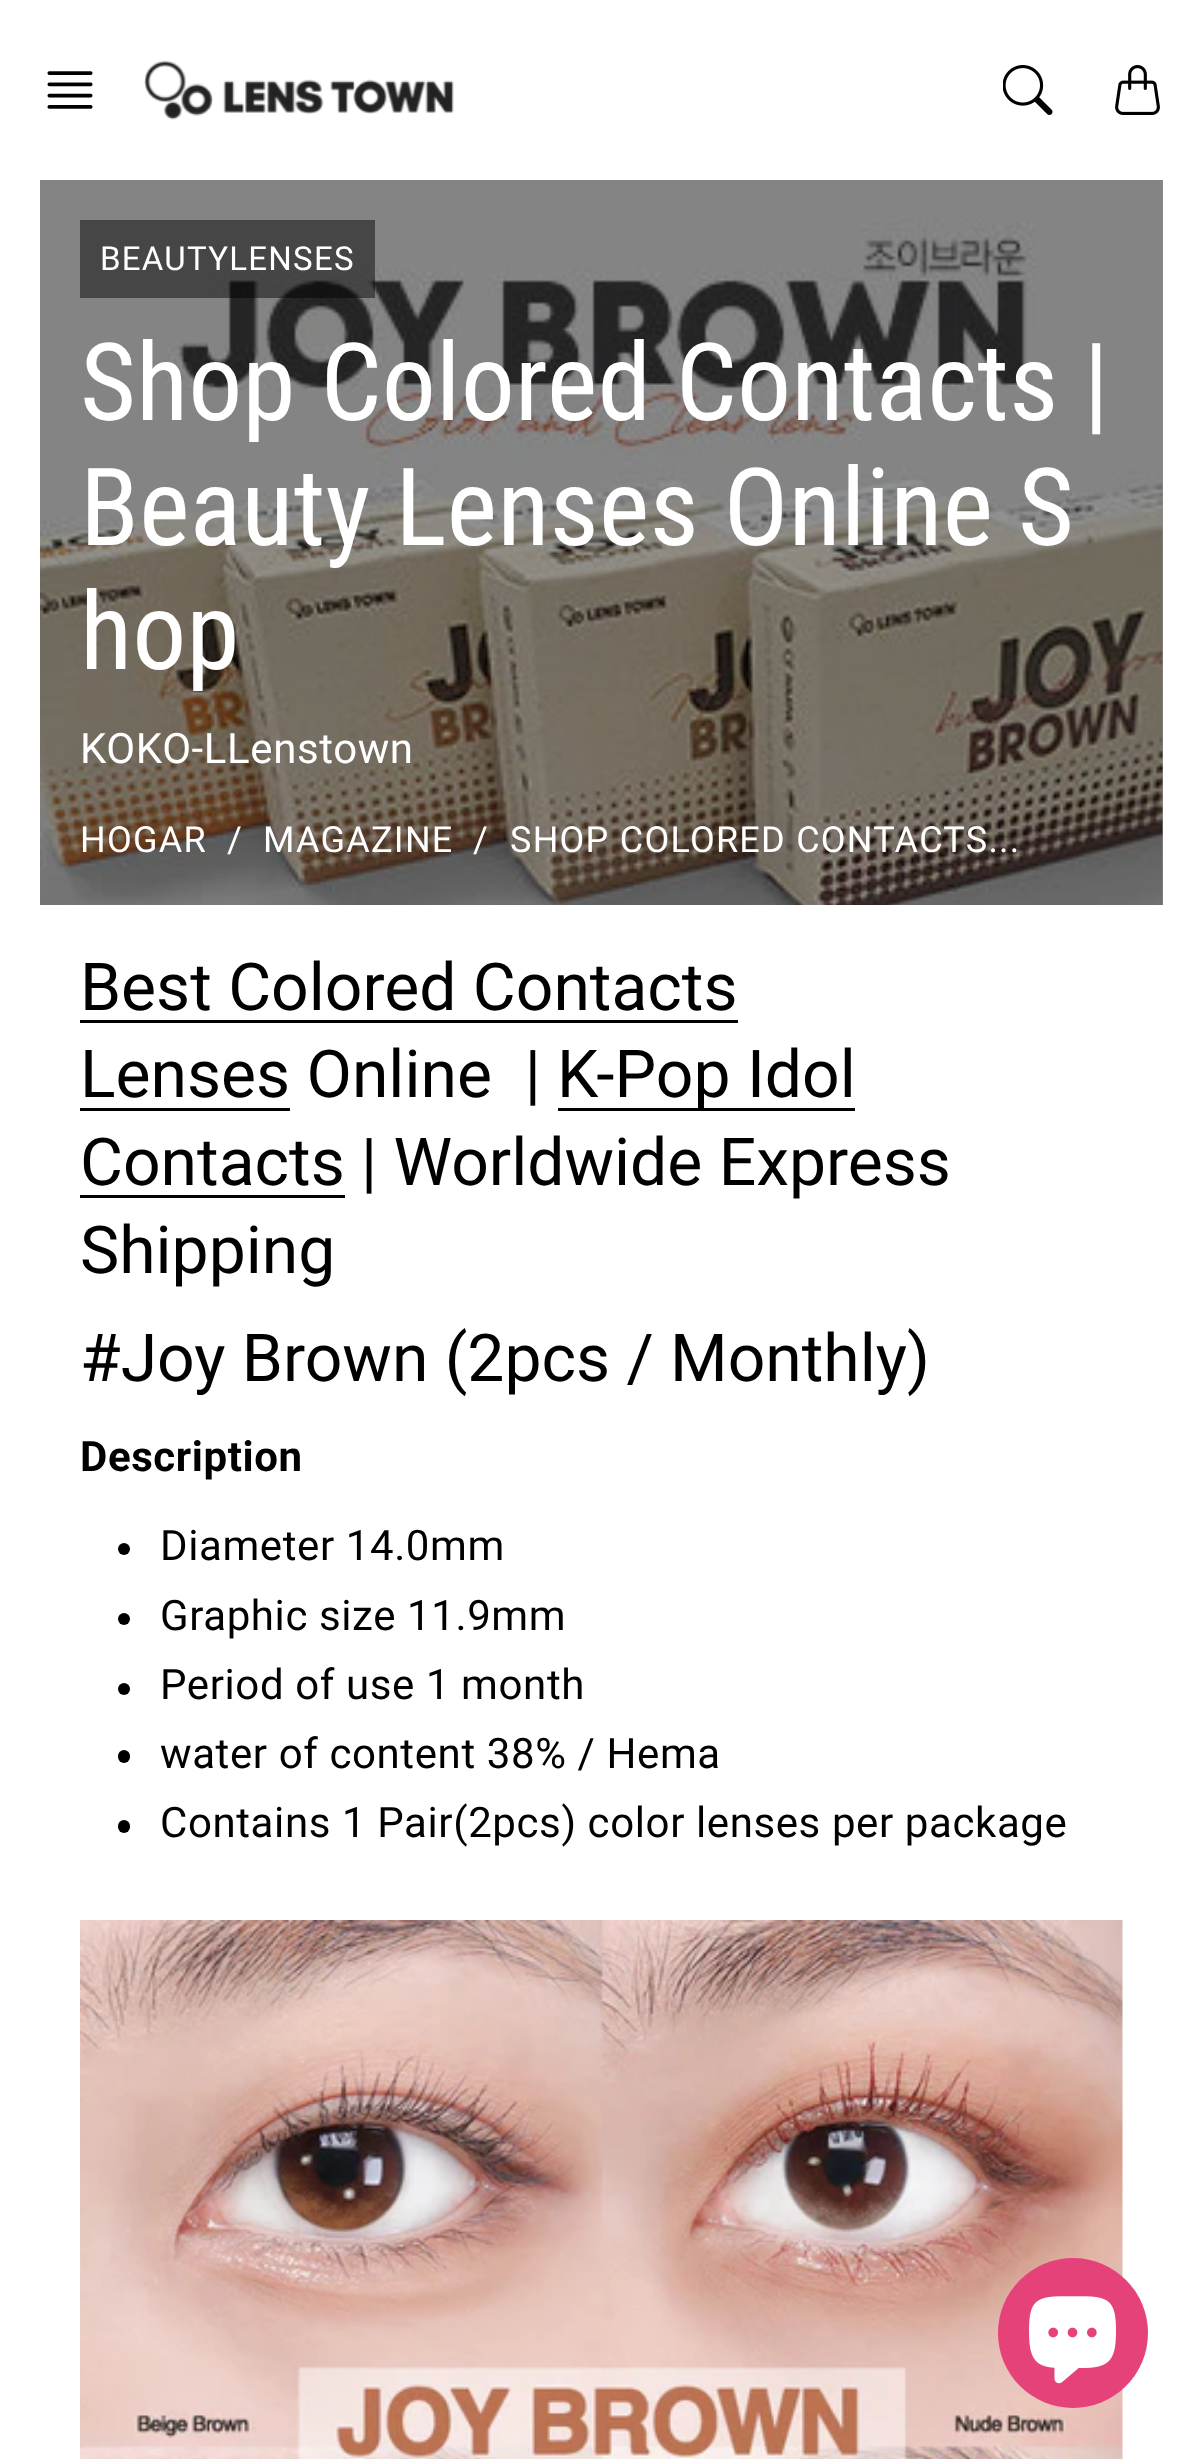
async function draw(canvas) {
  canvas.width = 1202;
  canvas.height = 2459;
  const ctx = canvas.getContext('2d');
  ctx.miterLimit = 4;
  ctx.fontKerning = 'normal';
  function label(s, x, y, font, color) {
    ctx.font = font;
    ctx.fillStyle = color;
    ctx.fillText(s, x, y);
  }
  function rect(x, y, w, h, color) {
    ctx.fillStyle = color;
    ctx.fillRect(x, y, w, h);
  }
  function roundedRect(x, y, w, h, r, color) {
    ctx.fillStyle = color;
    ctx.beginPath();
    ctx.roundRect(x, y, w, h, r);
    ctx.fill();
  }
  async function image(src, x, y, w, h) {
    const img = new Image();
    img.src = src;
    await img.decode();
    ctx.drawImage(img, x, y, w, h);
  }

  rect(0, 0, 1202, 2459, '#fff');
  rect(1162, 180, 1, 725, '#919191');
  await image('assets/img1.png', 47, 71, 46, 38);
  await image('assets/img2.png', 144, 60, 310, 60);
  await image('assets/img3.png', 1003, 65, 50, 50);
  await image('assets/img4.png', 1115, 65, 45, 50);
  await image('assets/img5.png', 40, 180, 1123, 725);
  rect(80, 220, 295, 78, '#00000078');
  ctx.letterSpacing = '1.25px';
  label('BEAUTYLENSES', 100, 270, '33px Roboto', '#fff');
  ctx.letterSpacing = '0px';
  label('Shop Colored Contacts |', 80, 420, '108px Roboto Condensed', '#fff');
  label('Beauty Lenses Online S', 80, 545, '108px Roboto Condensed', '#fff');
  label('hop', 80, 669, '108px Roboto Condensed', '#fff');
  ctx.letterSpacing = '0.6px';
  label('KOKO-LLenstown', 80, 763, '42px Roboto', '#fff');
  ctx.letterSpacing = '1.25px';
  label('HOGAR', 80, 852, '36px Roboto', '#fff');
  label('/', 227, 852, '36px Roboto', '#fff');
  label('MAGAZINE', 263, 852, '36px Roboto', '#fff');
  label('/', 473, 852, '36px Roboto', '#fff');
  label('SHOP COLORED CONTACTS...', 510, 852, '36px Roboto', '#fff');
  ctx.letterSpacing = '0px';
  label('Best Colored Contacts', 80, 1010, '66px Roboto', '#000');
  rect(80, 1020, 658, 3, '#000');
  label('Lenses Online  |', 80, 1097, '66px Roboto', '#000');
  rect(80, 1108, 210, 3, '#000');
  rect(558, 1108, 297, 3, '#000');
  label('K-Pop Idol', 557, 1097, '66px Roboto', '#000');
  rect(80, 1195, 265, 3, '#000');
  label('Contacts | Worldwide Express', 80, 1185, '66px Roboto', '#000');
  label('Shipping', 80, 1273, '66px Roboto', '#000');
  label('#Joy Brown (2pcs / Monthly)', 80, 1381, '66px Roboto', '#000');
  ctx.letterSpacing = '0.6px';
  label('Description', 80, 1471, 'bold 42px Roboto', '#000');
  ctx.beginPath();
  ctx.arc(124, 1549, 6, 0, 2 * Math.PI);
  ctx.fill();
  label('Diameter 14.0mm', 160, 1560, '42px Roboto', '#000');
  ctx.beginPath();
  ctx.arc(124, 1619, 6, 0, 2 * Math.PI);
  ctx.fill();
  label('Graphic size 11.9mm', 160, 1630, '42px Roboto', '#000');
  ctx.beginPath();
  ctx.arc(124, 1689, 6, 0, 2 * Math.PI);
  ctx.fill();
  label('Period of use 1 month', 160, 1699, '42px Roboto', '#000');
  roundedRect(118, 1750, 12, 13, 6, '#000');
  label('water of content 38% / Hema', 160, 1768, '42px Roboto', '#000');
  roundedRect(118, 1820, 12, 13, 6, '#000');
  label('Contains 1 Pair(2pcs) color lenses per package', 160, 1837, '42px Roboto', '#000');
  await image('assets/img6.png', 80, 1920, 1043, 539);
  ctx.fillStyle = '#e6427a';
  ctx.beginPath();
  ctx.arc(1073, 2333, 75, 0, 2 * Math.PI);
  ctx.fill();
  await image('assets/img7.png', 1029, 2296, 87, 88);
}

draw(document.querySelector('canvas'));
